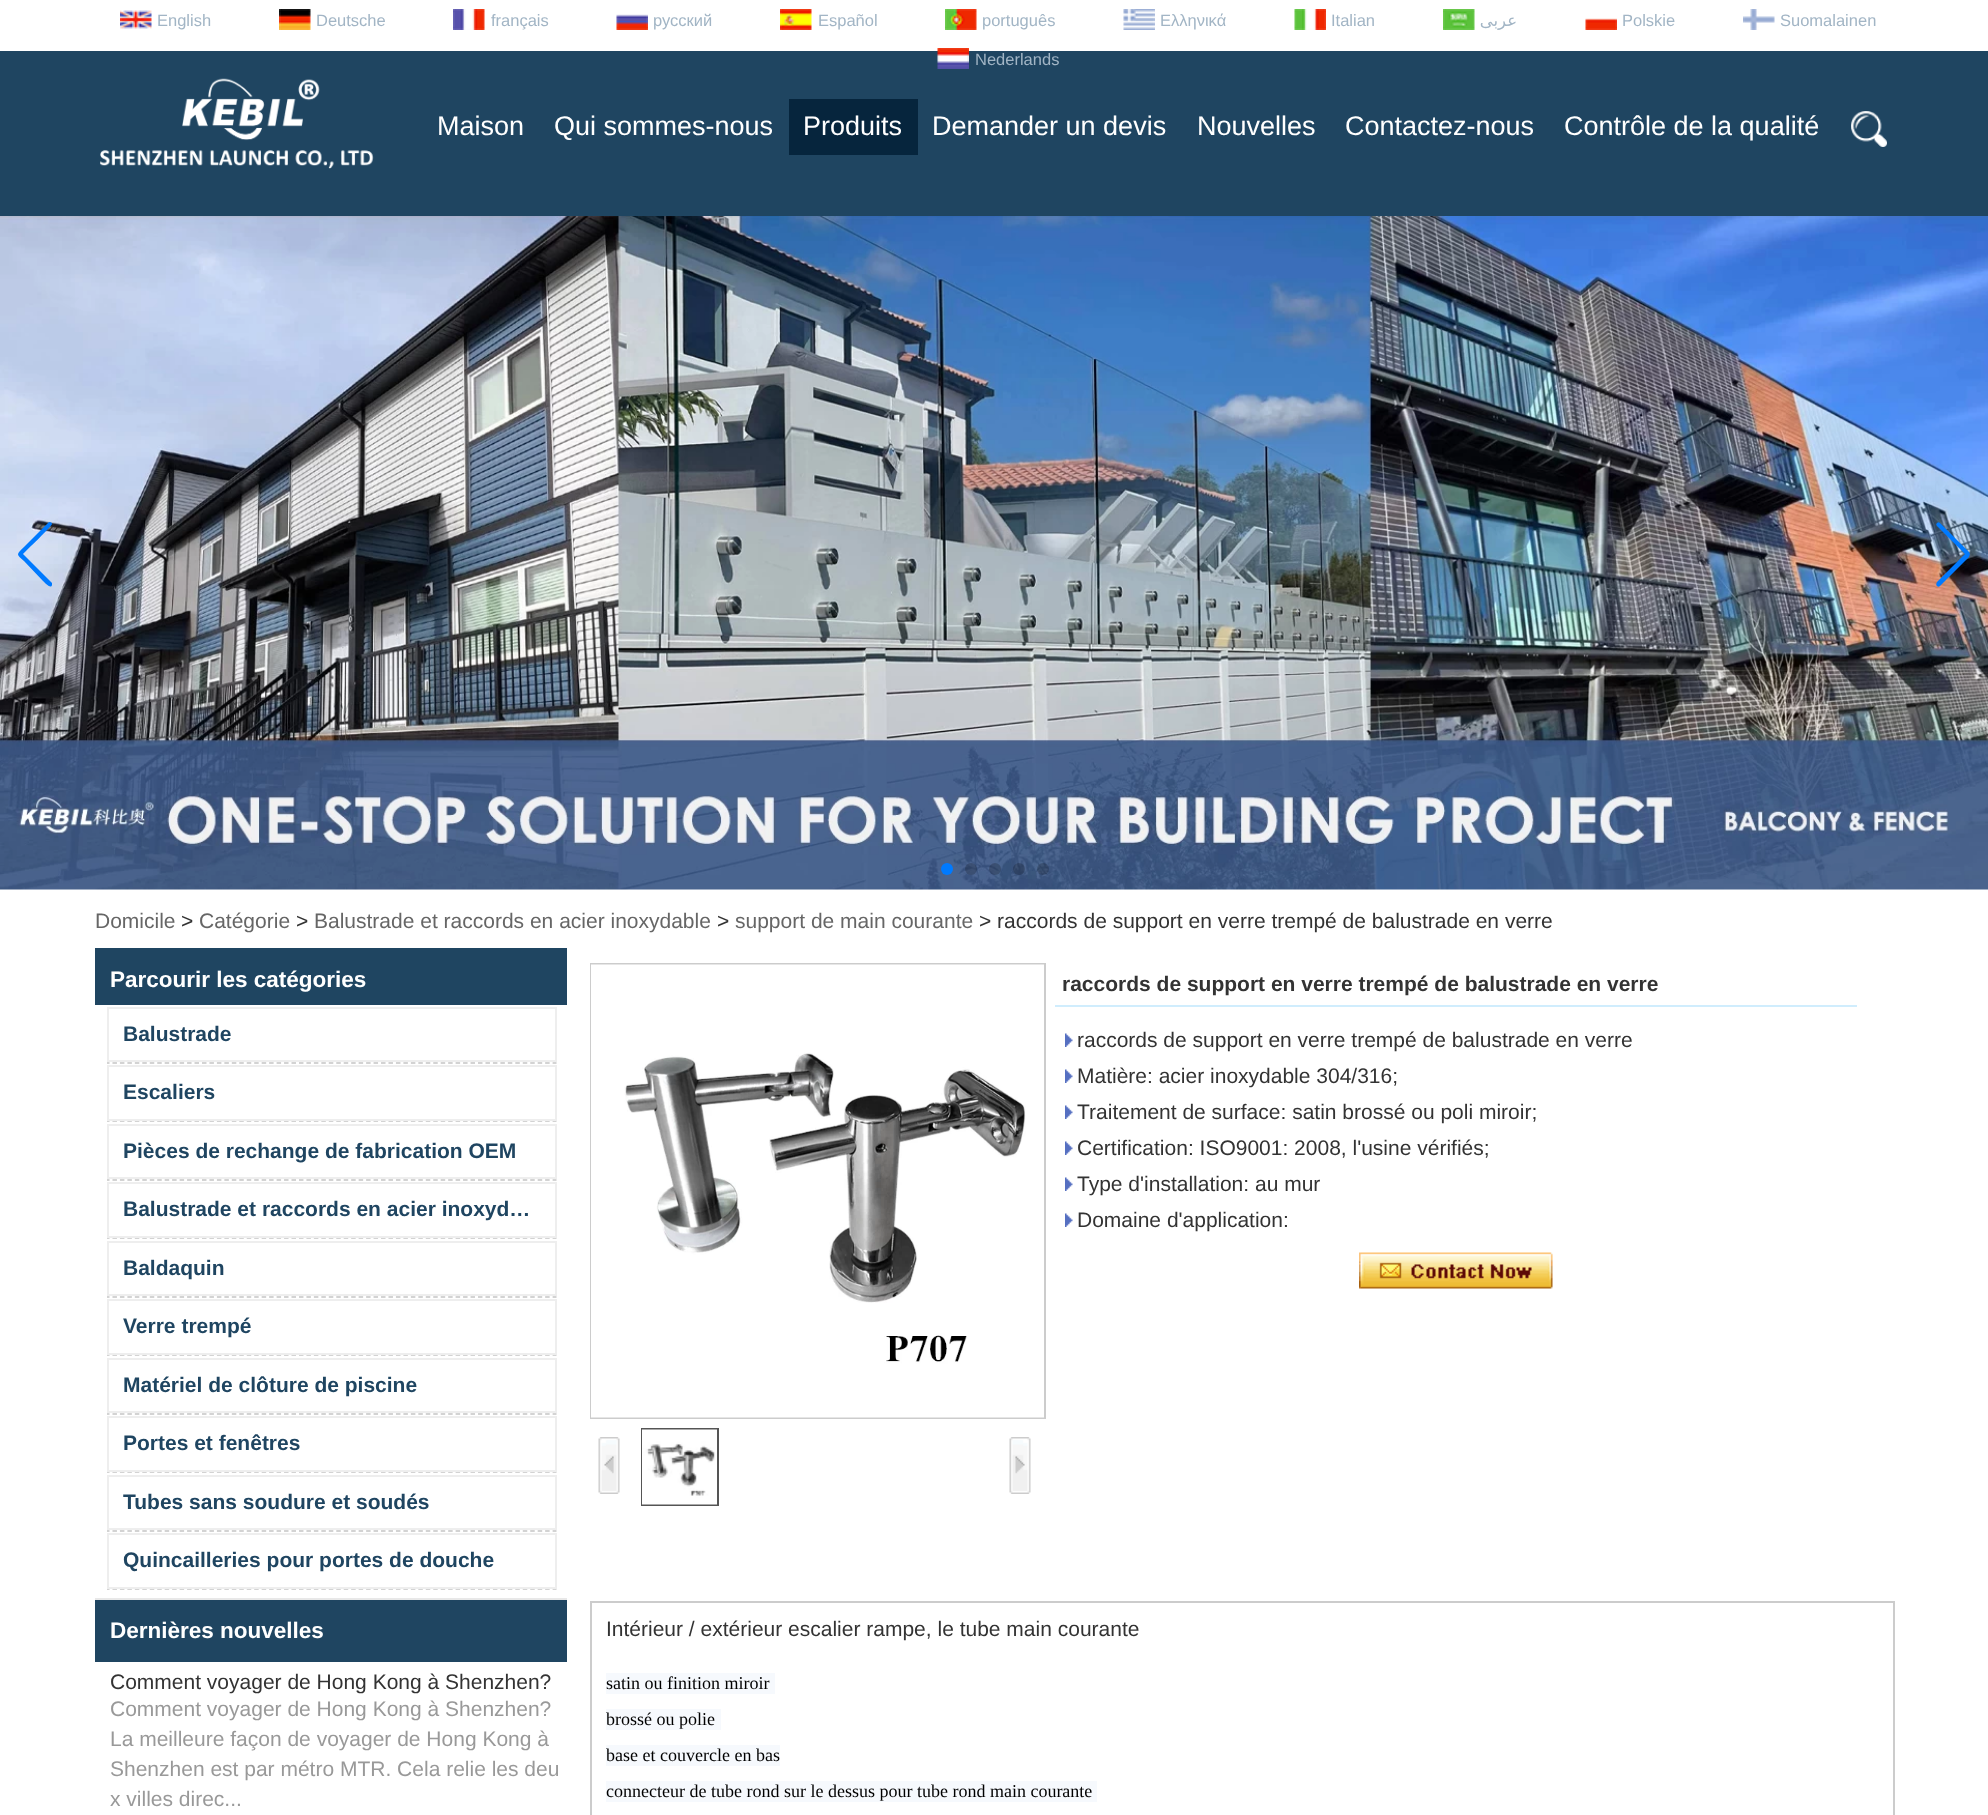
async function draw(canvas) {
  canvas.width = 1988;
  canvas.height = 1815;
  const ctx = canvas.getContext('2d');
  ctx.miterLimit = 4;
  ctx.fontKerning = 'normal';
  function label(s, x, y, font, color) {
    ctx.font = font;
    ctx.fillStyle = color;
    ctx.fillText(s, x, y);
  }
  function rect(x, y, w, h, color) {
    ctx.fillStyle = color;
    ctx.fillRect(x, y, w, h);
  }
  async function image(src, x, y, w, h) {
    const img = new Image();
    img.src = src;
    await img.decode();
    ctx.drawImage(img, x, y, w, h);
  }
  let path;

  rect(0, 0, 1988, 1815, '#fff');
  await image('assets/img1.png', 120, 10, 32, 19);
  label('English', 157, 26, '16.5px Liberation Sans', '#a2b5c5');
  await image('assets/img2.png', 279, 9, 32, 21);
  label('Deutsche', 316, 26, '16.5px Liberation Sans', '#a2b5c5');
  await image('assets/img3.png', 453, 9, 32, 21);
  label('français', 491, 26, '16.5px Liberation Sans', '#a2b5c5');
  await image('assets/img4.png', 616, 14, 32, 16);
  label('русский', 653, 26, '16.5px Liberation Sans', '#a2b5c5');
  await image('assets/img5.png', 780, 9, 32, 21);
  label('Español', 818, 26, '16.5px Liberation Sans', '#a2b5c5');
  await image('assets/img6.png', 945, 9, 32, 21);
  label('português', 982, 26, '16.5px Liberation Sans', '#a2b5c5');
  await image('assets/img7.png', 1123, 9, 32, 21);
  label('Ελληνικά', 1160, 26, '16.5px Liberation Sans', '#a2b5c5');
  await image('assets/img8.png', 1294, 9, 32, 21);
  label('Italian', 1331, 26, '16.5px Liberation Sans', '#a2b5c5');
  await image('assets/img9.png', 1443, 9, 32, 21);
  ctx.direction = 'rtl';
  label('عربى', 1517, 26, '16.5px DejaVu Sans', '#a2b5c5');
  await image('assets/img10.png', 1585, 18, 32, 12);
  ctx.direction = 'ltr';
  label('Polskie', 1622, 26, '16.5px Liberation Sans', '#a2b5c5');
  await image('assets/img11.png', 1743, 9, 32, 21);
  label('Suomalainen', 1780, 26, '16.5px Liberation Sans', '#a2b5c5');
  rect(0, 51, 1988, 165, '#1f4561');
  await image('assets/img12.png', 937, 48, 32, 21);
  label('Nederlands', 975, 65, '16.5px Liberation Sans', '#a2b5c5');
  await image('assets/img13.png', 100, 78, 274, 91);
  label('Maison', 437, 135, '27px Liberation Sans', '#fff');
  label('Qui sommes-nous', 554, 135, '27px Liberation Sans', '#fff');
  rect(789, 99, 129, 56, '#06253d');
  label('Produits', 803, 135, '27px Liberation Sans', '#fff');
  label('Demander un devis', 932, 135, '27px Liberation Sans', '#fff');
  label('Nouvelles', 1197, 135, '27px Liberation Sans', '#fff');
  label('Contactez-nous', 1345, 135, '27px Liberation Sans', '#fff');
  label('Contrôle de la qualité', 1564, 135, '27px Liberation Sans', '#fff');
  await image('assets/img14.png', 1851, 111, 36, 36);
  await image('assets/img15.png', 0, 216, 1988, 674);
  ctx.fillStyle = '#007aff';
  path = new Path2D('M48 523C49 521 52 522 52 524C52 526 26 551 23 554L52 583V585C51 589 46 584 43 581L24 561C16 554 16 555 24 547Z');
  ctx.fill(path);
  path = new Path2D('M1937 586C1936 585 1936 584 1937 582L1965 554L1937 526C1936 525 1936 524 1937 523C1938 522 1939 522 1940 523L1969 552L1970 554L1969 557L1940 586C1939 587 1938 587 1937 586Z');
  ctx.fill(path);
  ctx.beginPath();
  ctx.arc(947, 869, 6, 0, 2 * Math.PI);
  ctx.fill();
  ctx.fillStyle = '#00000033';
  ctx.beginPath();
  ctx.arc(971, 869, 6, 0, 2 * Math.PI);
  ctx.fill();
  ctx.beginPath();
  ctx.arc(995, 869, 6, 0, 2 * Math.PI);
  ctx.fill();
  ctx.beginPath();
  ctx.arc(1019, 869, 6, 0, 2 * Math.PI);
  ctx.fill();
  ctx.beginPath();
  ctx.arc(1043, 869, 6, 0, 2 * Math.PI);
  ctx.fill();
  label('Domicile', 95, 928, '21px Liberation Sans', '#666');
  label('>', 181, 928, '21px Liberation Sans', '#333');
  label('Catégorie', 199, 928, '21px Liberation Sans', '#666');
  label('>', 296, 928, '21px Liberation Sans', '#333');
  label('Balustrade et raccords en acier inoxydable', 314, 928, '21px Liberation Sans', '#666');
  label('>', 717, 928, '21px Liberation Sans', '#333');
  label('support de main courante', 735, 928, '21px Liberation Sans', '#666');
  label('> raccords de support en verre trempé de balustrade en verre', 979, 928, '21px Liberation Sans', '#333');
  rect(95, 948, 472, 57, '#1f4561');
  label('Parcourir les catégories', 110, 987, 'bold 22.5px Liberation Sans', '#fff');
  path = new Path2D('M105 1063H556.5');
  ctx.strokeStyle = '#c5c5c5';
  ctx.lineWidth = 1.5;
  ctx.setLineDash([4.5, 2.96]);
  ctx.stroke(path);
  rect(105, 1062, 2, 2, '#fff');
  ctx.strokeStyle = '#eee';
  ctx.lineWidth = 2;
  ctx.setLineDash([]);
  ctx.strokeRect(108, 1008, 448, 53);
  label('Balustrade', 123, 1041, 'bold 21px Liberation Sans', '#1f4561');
  path = new Path2D('M105 1121H556.5');
  ctx.strokeStyle = '#c5c5c5';
  ctx.lineWidth = 1.5;
  ctx.setLineDash([4.5, 2.96]);
  ctx.stroke(path);
  rect(105, 1120, 2, 2, '#fff');
  ctx.strokeStyle = '#eee';
  ctx.lineWidth = 2;
  ctx.setLineDash([]);
  ctx.strokeRect(108, 1066, 448, 54);
  label('Escaliers', 123, 1099, 'bold 21px Liberation Sans', '#1f4561');
  path = new Path2D('M105 1180H556.5');
  ctx.strokeStyle = '#c5c5c5';
  ctx.lineWidth = 1.5;
  ctx.setLineDash([4.5, 2.96]);
  ctx.stroke(path);
  rect(105, 1179, 2, 2, '#fff');
  ctx.strokeStyle = '#eee';
  ctx.lineWidth = 2;
  ctx.setLineDash([]);
  ctx.strokeRect(108, 1125, 448, 53);
  label('Pièces de rechange de fabrication OEM', 123, 1158, 'bold 21px Liberation Sans', '#1f4561');
  path = new Path2D('M105 1238H556.5');
  ctx.strokeStyle = '#c5c5c5';
  ctx.lineWidth = 1.5;
  ctx.setLineDash([4.5, 2.96]);
  ctx.stroke(path);
  rect(105, 1237, 2, 2, '#fff');
  ctx.strokeStyle = '#eee';
  ctx.lineWidth = 2;
  ctx.setLineDash([]);
  ctx.strokeRect(108, 1183, 448, 54);
  label('Balustrade et raccords en acier inoxyd…', 123, 1216, 'bold 21px Liberation Sans', '#1f4561');
  path = new Path2D('M105 1297H556.5');
  ctx.strokeStyle = '#c5c5c5';
  ctx.lineWidth = 1.5;
  ctx.setLineDash([4.5, 2.96]);
  ctx.stroke(path);
  rect(105, 1296, 2, 2, '#fff');
  ctx.strokeStyle = '#eee';
  ctx.lineWidth = 2;
  ctx.setLineDash([]);
  ctx.strokeRect(108, 1242, 448, 53);
  label('Baldaquin', 123, 1275, 'bold 21px Liberation Sans', '#1f4561');
  path = new Path2D('M105 1355H556.5');
  ctx.strokeStyle = '#c5c5c5';
  ctx.lineWidth = 1.5;
  ctx.setLineDash([4.5, 2.96]);
  ctx.stroke(path);
  rect(105, 1354, 2, 2, '#fff');
  ctx.strokeStyle = '#eee';
  ctx.lineWidth = 2;
  ctx.setLineDash([]);
  ctx.strokeRect(108, 1300, 448, 54);
  label('Verre trempé', 123, 1333, 'bold 21px Liberation Sans', '#1f4561');
  path = new Path2D('M105 1414H556.5');
  ctx.strokeStyle = '#c5c5c5';
  ctx.lineWidth = 1.5;
  ctx.setLineDash([4.5, 2.96]);
  ctx.stroke(path);
  rect(105, 1413, 2, 2, '#fff');
  ctx.strokeStyle = '#eee';
  ctx.lineWidth = 2;
  ctx.setLineDash([]);
  ctx.strokeRect(108, 1359, 448, 53);
  label('Matériel de clôture de piscine', 123, 1392, 'bold 21px Liberation Sans', '#1f4561');
  path = new Path2D('M105 1472H556.5');
  ctx.strokeStyle = '#c5c5c5';
  ctx.lineWidth = 1.5;
  ctx.setLineDash([4.5, 2.96]);
  ctx.stroke(path);
  rect(105, 1471, 2, 2, '#fff');
  ctx.strokeStyle = '#eee';
  ctx.lineWidth = 2;
  ctx.setLineDash([]);
  ctx.strokeRect(108, 1417, 448, 54);
  label('Portes et fenêtres', 123, 1450, 'bold 21px Liberation Sans', '#1f4561');
  path = new Path2D('M105 1531H556.5');
  ctx.strokeStyle = '#c5c5c5';
  ctx.lineWidth = 1.5;
  ctx.setLineDash([4.5, 2.96]);
  ctx.stroke(path);
  rect(105, 1530, 2, 2, '#fff');
  ctx.strokeStyle = '#eee';
  ctx.lineWidth = 2;
  ctx.setLineDash([]);
  ctx.strokeRect(108, 1476, 448, 53);
  label('Tubes sans soudure et soudés', 123, 1509, 'bold 21px Liberation Sans', '#1f4561');
  path = new Path2D('M105 1589H556.5');
  ctx.strokeStyle = '#c5c5c5';
  ctx.lineWidth = 1.5;
  ctx.setLineDash([4.5, 2.96]);
  ctx.stroke(path);
  rect(105, 1588, 2, 2, '#fff');
  ctx.strokeStyle = '#eee';
  ctx.lineWidth = 2;
  ctx.setLineDash([]);
  ctx.strokeRect(108, 1534, 448, 54);
  label('Quincailleries pour portes de douche', 123, 1567, 'bold 21px Liberation Sans', '#1f4561');
  rect(95, 1600, 472, 62, '#1f4561');
  rect(95, 1598, 472, 2, '#e8e8e8');
  label('Dernières nouvelles', 110, 1638, 'bold 22.5px Liberation Sans', '#fff');
  label('Comment voyager de Hong Kong à Shenzhen?', 110, 1689, '21px Liberation Sans', '#333');
  label('Comment voyager de Hong Kong à Shenzhen?', 110, 1716, '21px Liberation Sans', '#999');
  label('La meilleure façon de voyager de Hong Kong à', 110, 1746, '21px Liberation Sans', '#999');
  label('Shenzhen est par métro MTR. Cela relie les deu', 110, 1776, '21px Liberation Sans', '#999');
  label('x villes direc...', 110, 1806, '21px Liberation Sans', '#999');
  ctx.strokeStyle = '#ccc';
  ctx.strokeRect(591, 964, 454, 454);
  await image('assets/img16.png', 591, 964, 453, 454);
  await image('assets/img17.png', 598, 1437, 22, 57);
  ctx.strokeStyle = '#555';
  ctx.strokeRect(642, 1429, 76, 76);
  await image('assets/img18.png', 642, 1429, 75, 76);
  await image('assets/img19.png', 1009, 1437, 22, 57);
  rect(1055, 1005, 802, 2, '#d0edfd');
  label('raccords de support en verre trempé de balustrade en verre', 1062, 991, 'bold 21px Liberation Sans', '#333');
  await image('assets/img20.png', 1065, 1033, 8, 14);
  label('raccords de support en verre trempé de balustrade en verre', 1077, 1047, '21px Liberation Sans', '#333');
  await image('assets/img20.png', 1065, 1069, 8, 14);
  label('Matière: acier inoxydable 304/316;', 1077, 1083, '21px Liberation Sans', '#333');
  await image('assets/img20.png', 1065, 1105, 8, 14);
  label('Traitement de surface: satin brossé ou poli miroir;', 1077, 1119, '21px Liberation Sans', '#333');
  await image('assets/img20.png', 1065, 1141, 8, 14);
  label('Certification: ISO9001: 2008, l\'usine vérifiés;', 1077, 1155, '21px Liberation Sans', '#333');
  await image('assets/img20.png', 1065, 1177, 8, 14);
  label('Type d\'installation: au mur', 1077, 1191, '21px Liberation Sans', '#333');
  await image('assets/img20.png', 1065, 1213, 8, 14);
  label('Domaine d\'application:', 1077, 1227, '21px Liberation Sans', '#333');
  await image('assets/img21.png', 1359, 1252, 194, 37);
  ctx.strokeStyle = '#ccc';
  ctx.strokeRect(591, 1602, 1303, 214);
  label('Intérieur / extérieur escalier rampe, le tube main courante', 606, 1636, '21px Liberation Sans', '#333');
  rect(606, 1673, 169, 21, '#f6f9fd');
  label('satin ou finition miroir', 606, 1689, '18px Liberation Serif', '#000');
  rect(606, 1709, 115, 21, '#f6f9fd');
  label('brossé ou polie', 606, 1725, '18px Liberation Serif', '#000');
  rect(606, 1745, 174, 21, '#f6f9fd');
  label('base et couvercle en bas', 606, 1761, '18px Liberation Serif', '#000');
  rect(606, 1781, 491, 21, '#f6f9fd');
  label('connecteur de tube rond sur le dessus pour tube rond main courante', 606, 1797, '18px Liberation Serif', '#000');
}

draw(document.querySelector('canvas'));
